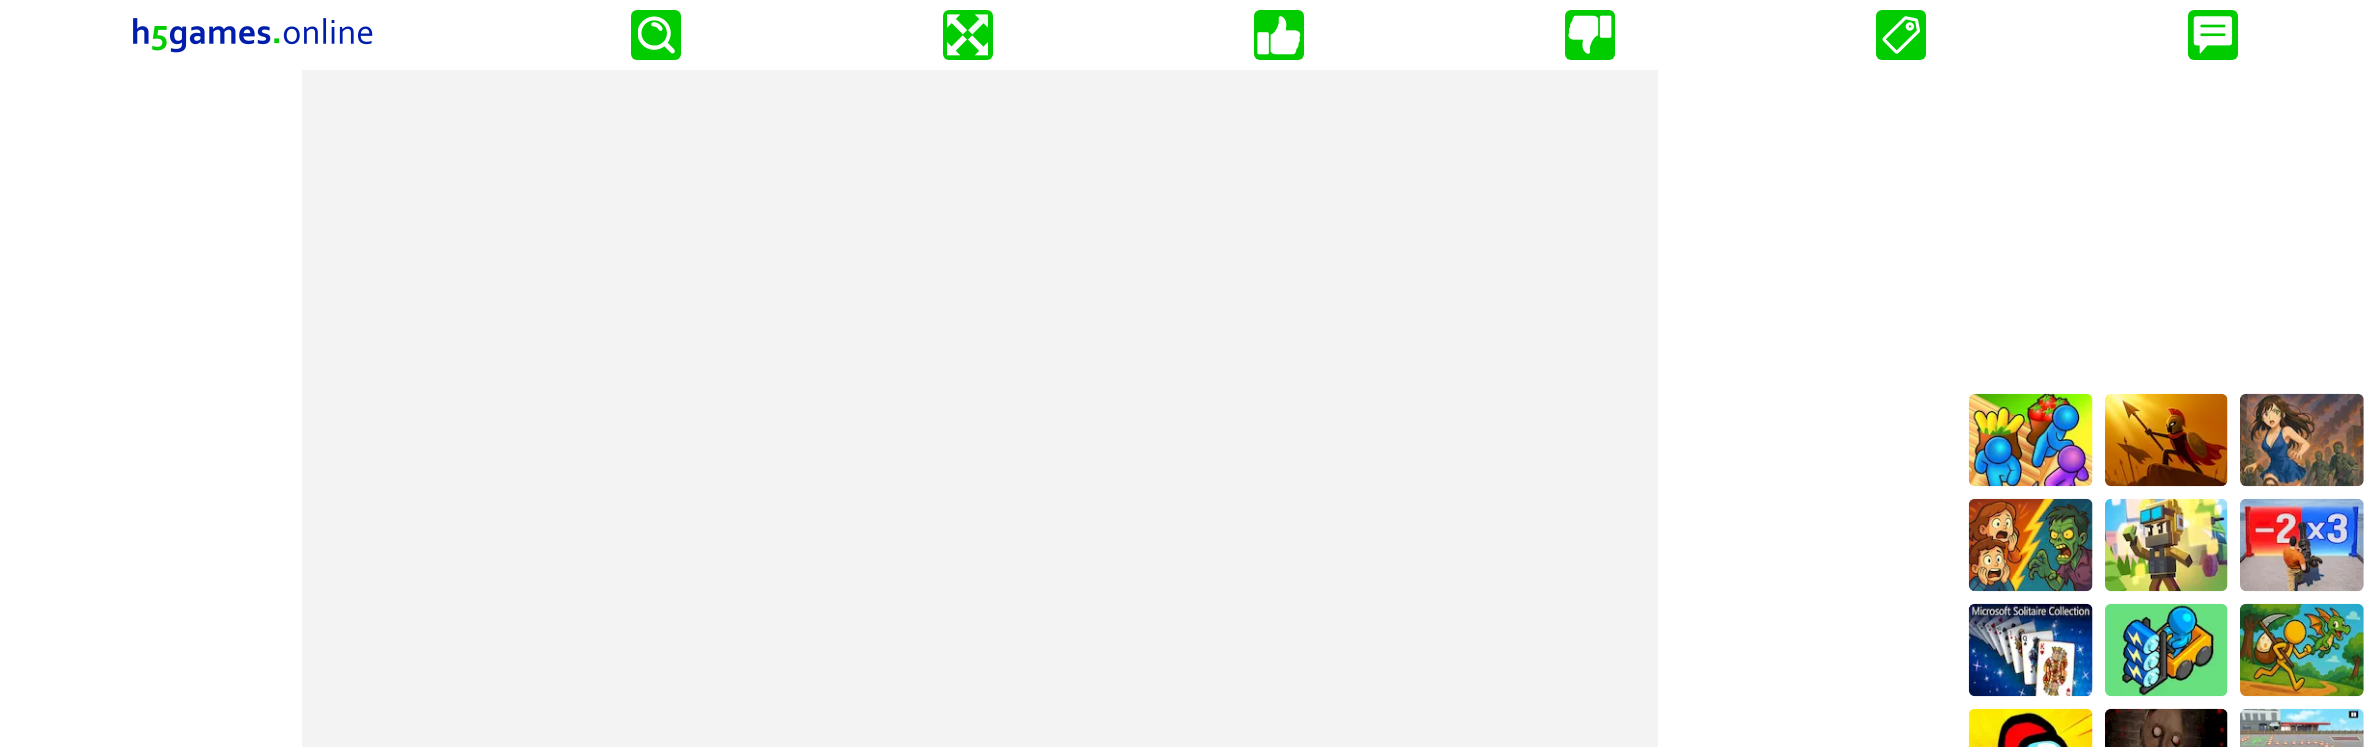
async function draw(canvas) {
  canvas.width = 2372;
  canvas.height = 747;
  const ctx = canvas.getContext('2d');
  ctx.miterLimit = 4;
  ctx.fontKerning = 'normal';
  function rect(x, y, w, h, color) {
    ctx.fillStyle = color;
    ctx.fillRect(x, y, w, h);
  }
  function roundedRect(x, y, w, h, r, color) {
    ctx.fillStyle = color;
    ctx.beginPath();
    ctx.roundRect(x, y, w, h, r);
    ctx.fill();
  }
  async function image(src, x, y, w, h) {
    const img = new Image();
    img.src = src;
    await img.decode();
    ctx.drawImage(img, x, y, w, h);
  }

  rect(0, 0, 2372, 747, '#fff');
  await image('assets/img1.png', 133, 18, 240, 35);
  roundedRect(631, 10, 50, 50, 6, '#0c0');
  await image('assets/img2.png', 638, 16, 37, 38);
  roundedRect(943, 10, 50, 50, 6, '#0c0');
  await image('assets/img3.png', 947, 14, 41, 42);
  roundedRect(1254, 10, 50, 50, 6, '#0c0');
  await image('assets/img4.png', 1257, 16, 44, 39);
  roundedRect(1565, 10, 50, 50, 6, '#0c0');
  await image('assets/img5.png', 1568, 15, 44, 39);
  roundedRect(1876, 10, 50, 50, 6, '#0c0');
  await image('assets/img6.png', 1882, 16, 39, 38);
  roundedRect(2188, 10, 50, 50, 6, '#0c0');
  await image('assets/img7.png', 2193, 16, 40, 38);
  rect(302, 70, 1356, 677, '#f3f3f3');
  await image('assets/img8.png', 1968, 393, 125, 94);
  await image('assets/img9.png', 2105, 393, 123, 94);
  await image('assets/img10.png', 2240, 393, 124, 94);
  await image('assets/img11.png', 1968, 498, 125, 94);
  await image('assets/img12.png', 2105, 498, 123, 94);
  await image('assets/img13.png', 2240, 498, 124, 94);
  await image('assets/img14.png', 1968, 603, 125, 94);
  await image('assets/img15.png', 2105, 603, 123, 94);
  await image('assets/img16.png', 2240, 603, 124, 94);
  await image('assets/img17.png', 1968, 708, 125, 39);
  await image('assets/img18.png', 2105, 708, 123, 39);
  await image('assets/img19.png', 2240, 708, 124, 39);
}

draw(document.querySelector('canvas'));
